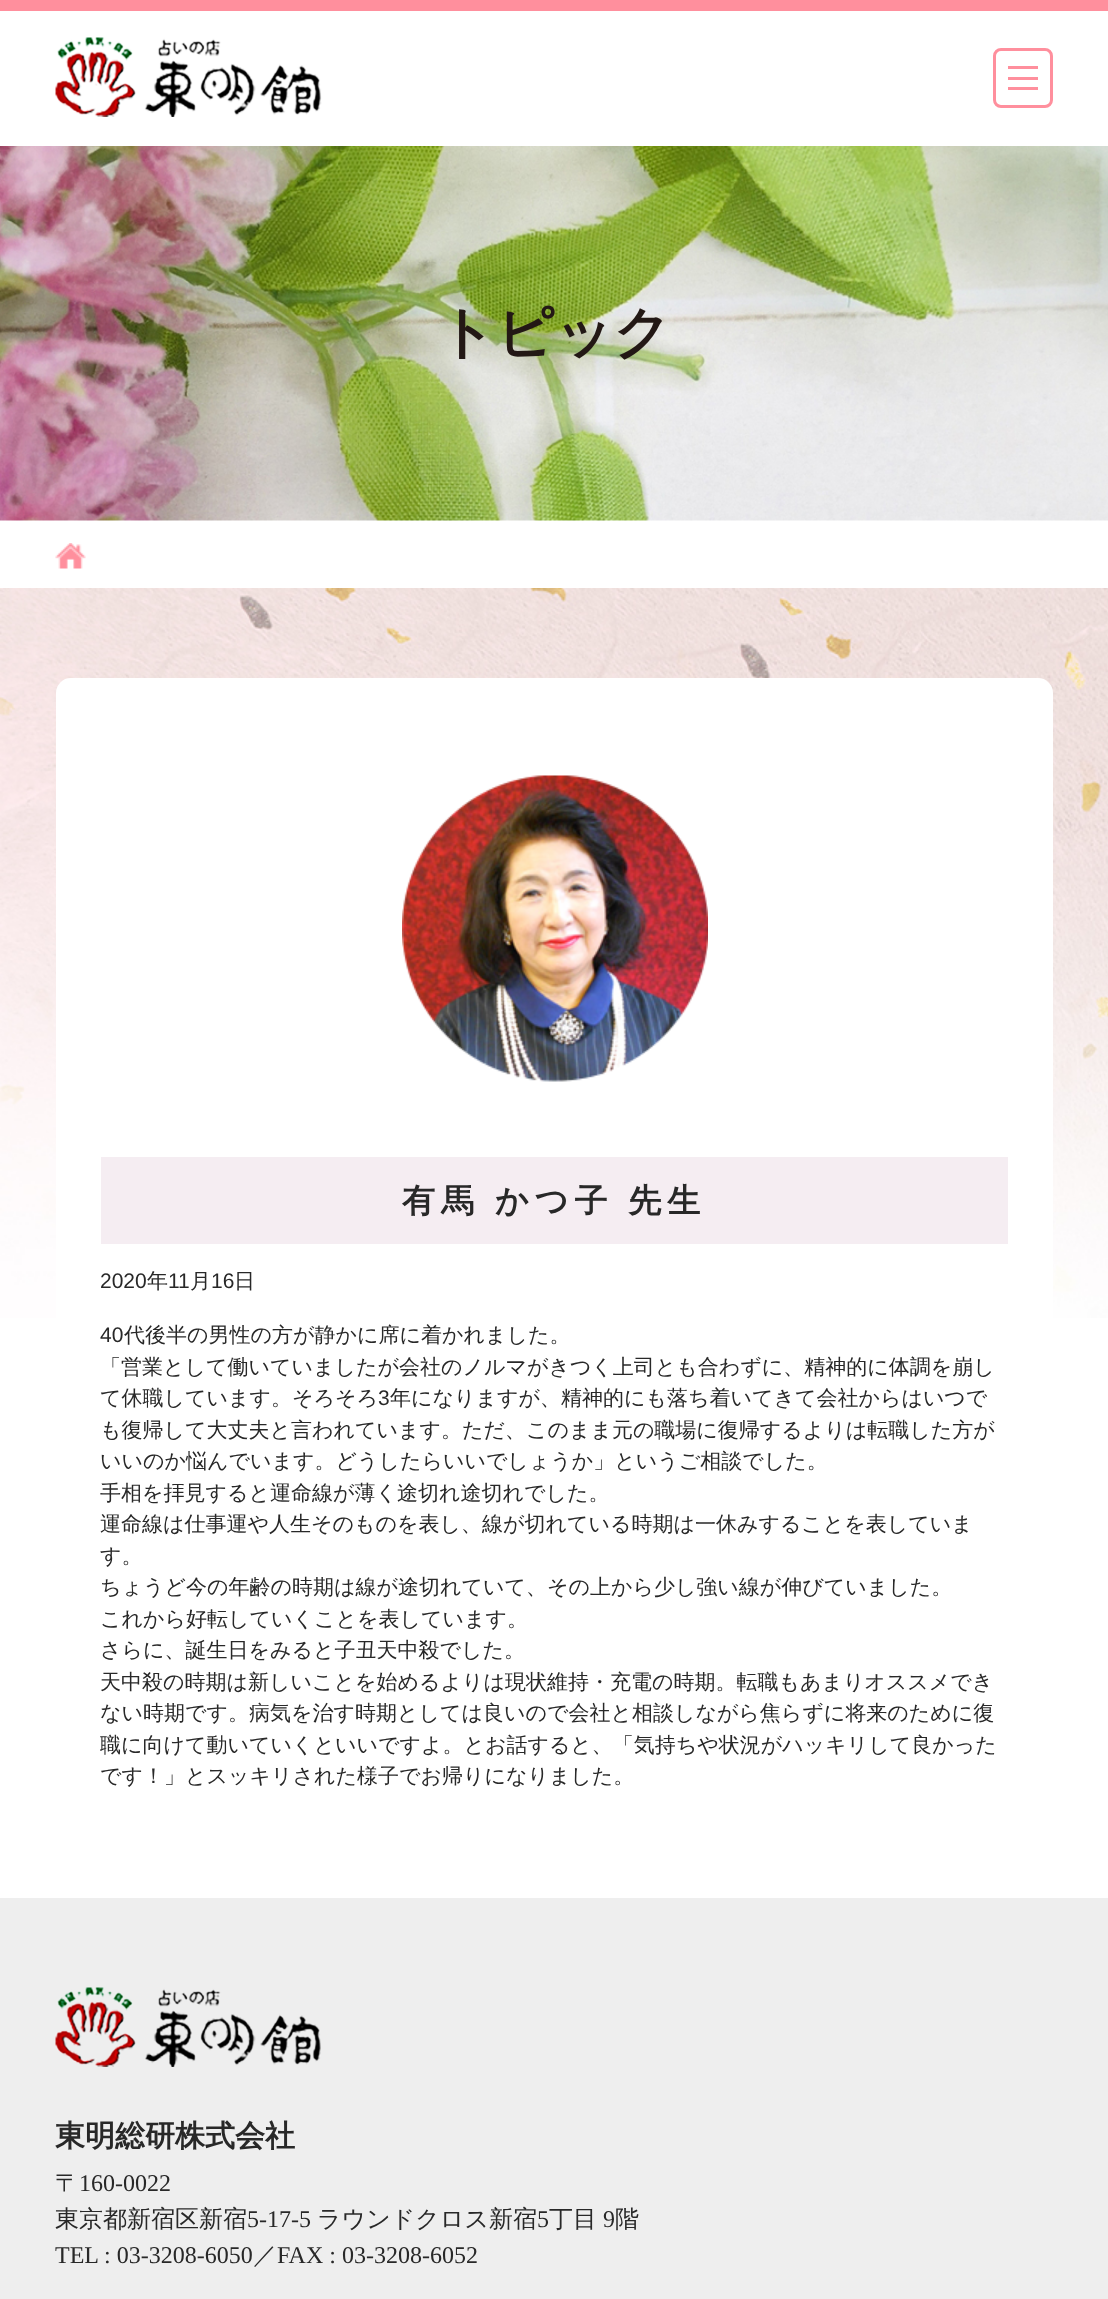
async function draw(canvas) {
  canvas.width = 1108;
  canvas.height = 2299;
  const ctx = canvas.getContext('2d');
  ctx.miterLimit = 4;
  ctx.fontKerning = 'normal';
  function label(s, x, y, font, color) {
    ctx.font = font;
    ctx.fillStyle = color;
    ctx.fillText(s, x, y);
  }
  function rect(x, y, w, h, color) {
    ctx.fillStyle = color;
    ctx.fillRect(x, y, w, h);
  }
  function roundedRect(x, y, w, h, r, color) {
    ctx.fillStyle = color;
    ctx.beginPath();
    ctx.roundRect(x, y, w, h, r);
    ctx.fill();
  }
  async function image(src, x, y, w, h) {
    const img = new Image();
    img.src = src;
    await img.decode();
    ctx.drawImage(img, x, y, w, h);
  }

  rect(0, 0, 1108, 2299, '#fff');
  rect(0, 0, 1108, 11, '#ff8f9d');
  await image('assets/img1.png', 55, 37, 267, 80);
  ctx.beginPath();
  ctx.roundRect(994.5, 49.5, 57, 57, 6.5);
  ctx.strokeStyle = '#ff8f9d';
  ctx.lineWidth = 3;
  ctx.stroke();
  rect(1008, 77, 30, 3, '#ff8f9d');
  rect(1008, 66, 30, 3, '#ff8f9d');
  rect(1008, 87, 30, 3, '#ff8f9d');
  await image('assets/img2.png', 0, 146, 1108, 375);
  label('トピック', 438, 352, 'bold 57px WenQuanYi Zen Hei', '#231815');
  await image('assets/img3.png', 55, 543, 31, 26);
  await image('assets/img4.png', 0, 588, 1108, 730);
  roundedRect(56, 678, 997, 1220, 15, '#fff');
  await image('assets/img5.png', 402, 775, 306, 307);
  rect(101, 1157, 907, 87, '#f5edf2');
  ctx.letterSpacing = '6px';
  ctx.wordSpacing = '-1px';
  label('有馬 かつ子 先生', 402, 1212, 'bold 33px WenQuanYi Zen Hei', '#282828');
  ctx.letterSpacing = '0px';
  ctx.wordSpacing = '0px';
  label('2020', 100, 1288, '21px Liberation Sans', '#282828');
  label('年', 147, 1288, '500 21px WenQuanYi Zen Hei', '#282828');
  label('11', 168, 1288, '21px Liberation Sans', '#282828');
  label('月', 190, 1288, '500 21px WenQuanYi Zen Hei', '#282828');
  label('16', 211, 1288, '21px Liberation Sans', '#282828');
  label('日', 234, 1288, '500 21px WenQuanYi Zen Hei', '#282828');
  label('40', 100, 1342, '21px Liberation Sans', '#282828');
  label('代後半の男性の方が静かに席に着かれました。', 124, 1342, '500 21px WenQuanYi Zen Hei', '#282828');
  label('「営業として働いていましたが会社のノルマがきつく上司とも合わずに、精神的に体調を崩し', 100, 1374, '500 21px WenQuanYi Zen Hei', '#282828');
  label('て休職しています。そろそろ', 100, 1405, '500 21px WenQuanYi Zen Hei', '#282828');
  label('3', 378, 1405, '21px Liberation Sans', '#282828');
  label('年になりますが、精神的にも落ち着いてきて会社からはいつで', 390, 1405, '500 21px WenQuanYi Zen Hei', '#282828');
  label('も復帰して大丈夫と言われています。ただ、このまま元の職場に復帰するよりは転職した方が', 100, 1437, '500 21px WenQuanYi Zen Hei', '#282828');
  label('いいのか悩んでいます。どうしたらいいでしょうか」というご相談でした。', 100, 1468, '500 21px WenQuanYi Zen Hei', '#282828');
  label('手相を拝見すると運命線が薄く途切れ途切れでした。', 100, 1500, '500 21px WenQuanYi Zen Hei', '#282828');
  label('運命線は仕事運や人生そのものを表し、線が切れている時期は一休みすることを表していま', 100, 1531, '500 21px WenQuanYi Zen Hei', '#282828');
  label('す。', 100, 1563, '500 21px WenQuanYi Zen Hei', '#282828');
  label('ちょうど今の年齢の時期は線が途切れていて、その上から少し強い線が伸びていました。', 100, 1594, '500 21px WenQuanYi Zen Hei', '#282828');
  label('これから好転していくことを表しています。', 100, 1626, '500 21px WenQuanYi Zen Hei', '#282828');
  label('さらに、誕生日をみると子丑天中殺でした。', 100, 1657, '500 21px WenQuanYi Zen Hei', '#282828');
  label('天中殺の時期は新しいことを始めるよりは現状維持・充電の時期。転職もあまりオススメでき', 100, 1689, '500 21px WenQuanYi Zen Hei', '#282828');
  label('ない時期です。病気を治す時期としては良いので会社と相談しながら焦らずに将来のために復', 100, 1720, '500 21px WenQuanYi Zen Hei', '#282828');
  label('職に向けて動いていくといいですよ。とお話すると、「気持ちや状況がハッキリして良かった', 100, 1752, '500 21px WenQuanYi Zen Hei', '#282828');
  label('です！」とスッキリされた様子でお帰りになりました。', 100, 1783, '500 21px WenQuanYi Zen Hei', '#282828');
  rect(0, 1898, 1108, 401, '#eee');
  await image('assets/img6.png', 55, 1987, 266, 80);
  label('東明総研株式会社', 55, 2146, 'bold 30px WenQuanYi Zen Hei', '#282828');
  label('〒', 55, 2191, '500 24px WenQuanYi Zen Hei', '#282828');
  label('160-0022', 79, 2191, '24px Liberation Serif', '#282828');
  label('東京都新宿区新宿', 55, 2227, '500 24px WenQuanYi Zen Hei', '#282828');
  label('5-17-5', 247, 2227, '24px Liberation Serif', '#282828');
  label('ラウンドクロス新宿', 317, 2227, '500 24px WenQuanYi Zen Hei', '#282828');
  label('5', 537, 2227, '24px Liberation Serif', '#282828');
  label('丁目', 549, 2227, '500 24px WenQuanYi Zen Hei', '#282828');
  label('9', 603, 2227, '24px Liberation Serif', '#282828');
  label('階', 615, 2227, '500 24px WenQuanYi Zen Hei', '#282828');
  label('TEL : 03-3208-6050', 55, 2263, '24px Liberation Serif', '#282828');
  label('／', 253, 2263, '500 24px WenQuanYi Zen Hei', '#282828');
  label('FAX : 03-3208-6052', 277, 2263, '24px Liberation Serif', '#282828');
}

draw(document.querySelector('canvas'));
